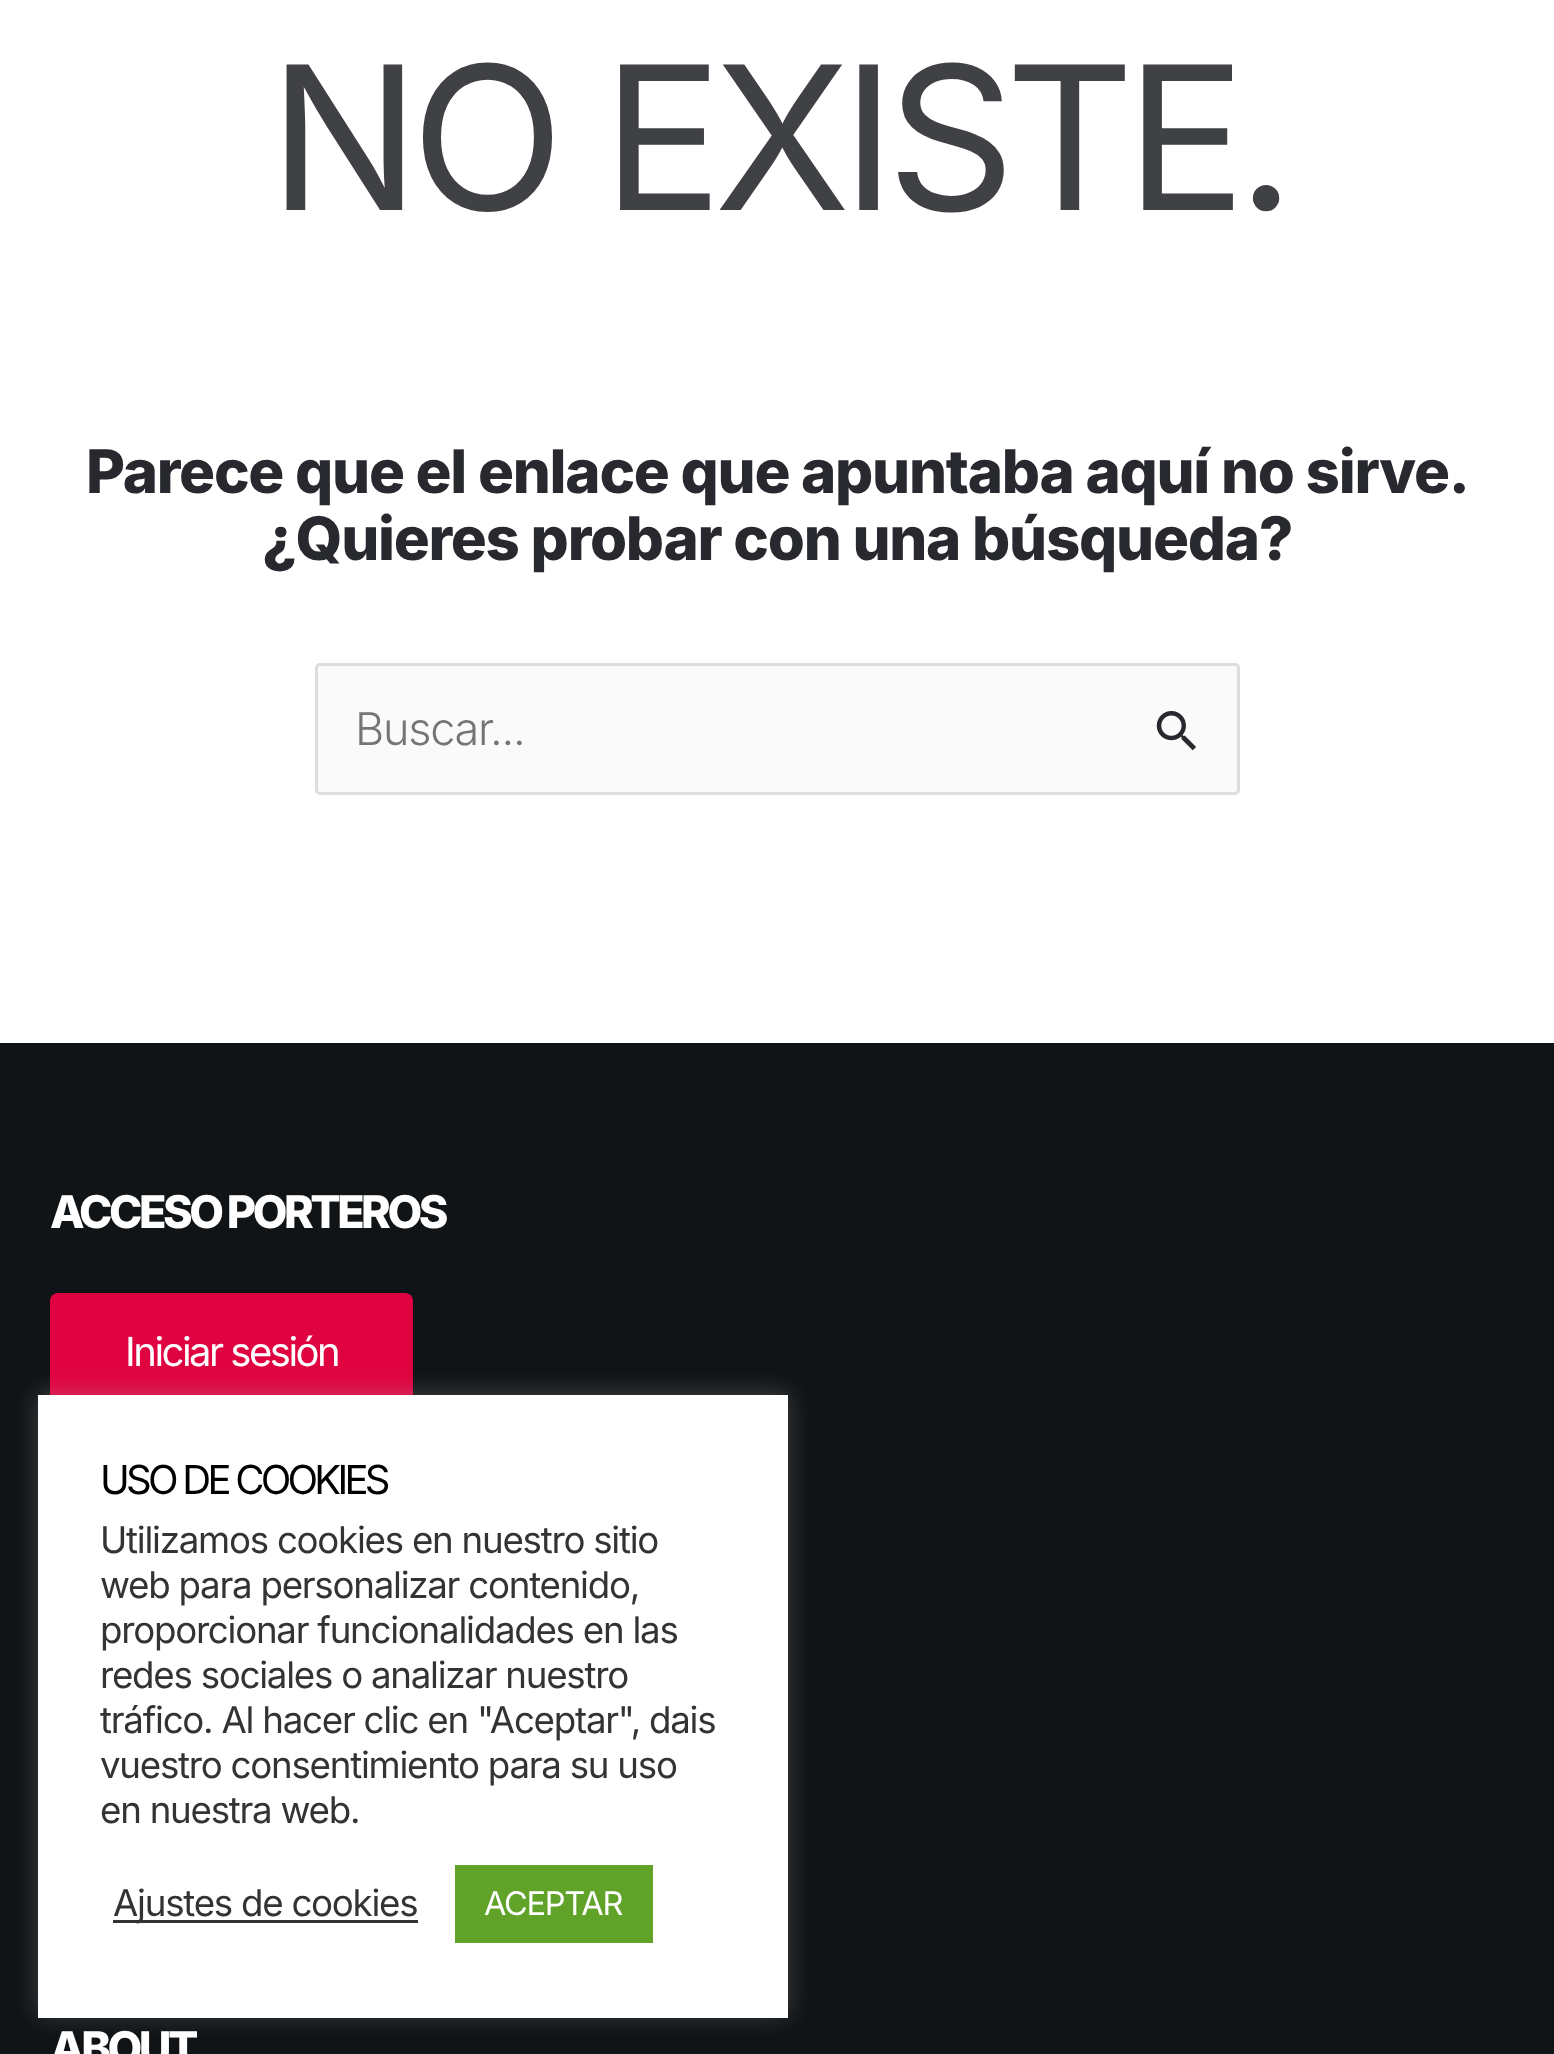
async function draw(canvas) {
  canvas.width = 1554;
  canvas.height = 2054;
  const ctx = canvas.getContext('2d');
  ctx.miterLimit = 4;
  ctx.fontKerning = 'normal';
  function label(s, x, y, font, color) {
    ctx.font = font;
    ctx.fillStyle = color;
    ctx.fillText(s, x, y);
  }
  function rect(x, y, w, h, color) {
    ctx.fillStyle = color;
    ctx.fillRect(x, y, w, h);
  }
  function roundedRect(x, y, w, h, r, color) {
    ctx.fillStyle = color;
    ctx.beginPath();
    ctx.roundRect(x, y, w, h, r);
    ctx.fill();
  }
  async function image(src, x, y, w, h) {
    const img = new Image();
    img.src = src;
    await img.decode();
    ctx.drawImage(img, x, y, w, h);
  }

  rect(0, 0, 1554, 2054, '#fff');
  ctx.letterSpacing = '-8.75px';
  label('NO EXISTE.', 269, 210, '200px Inter', '#404145');
  ctx.letterSpacing = '-1.25px';
  label('Parece que el enlace que apuntaba aquí no sirve.', 86, 493, '800 60px Inter', '#28292e');
  label('¿Quieres probar con una búsqueda?', 262, 560, '800 60px Inter', '#28292e');
  ctx.fillStyle = '#fafafa';
  ctx.beginPath();
  ctx.roundRect(316.5, 664.5, 922, 129, 3.5);
  ctx.fill();
  ctx.strokeStyle = '#ddd';
  ctx.lineWidth = 3;
  ctx.stroke();
  label('Buscar...', 355, 745, '300 45px Inter', '#757575');
  await image('assets/img1.png', 1156, 711, 40, 40);
  rect(0, 1043, 1554, 1011, '#111416');
  ctx.letterSpacing = '-3.5px';
  label('ACCESO PORTEROS', 50, 1228, '800 45px Inter', '#fff');
  roundedRect(50, 1293, 363, 115, 8, '#e00341');
  ctx.letterSpacing = '-2.5px';
  label('Iniciar sesión', 125, 1366, '40px Inter', '#fff');
  ctx.letterSpacing = '-3.5px';
  label('ABOUT', 50, 2064, '800 45px Inter', '#fff');
  ctx.fillStyle = '#acabab4d';
  ctx.filter = 'blur(12.5px)';
  ctx.beginPath();
  ctx.rect(38, 1393, 750, 622);
  ctx.fill();
  ctx.filter = 'none';
  rect(38, 1395, 750, 623, '#fff');
  ctx.letterSpacing = '-3.75px';
  label('USO DE COOKIES', 100, 1494, '40px Inter', '#000');
  ctx.letterSpacing = '-1.25px';
  label('Utilizamos cookies en nuestro sitio', 100, 1553, '36.7px Inter', '#333');
  label('web para personalizar contenido,', 100, 1598, '36.7px Inter', '#333');
  label('proporcionar funcionalidades en las', 100, 1643, '36.7px Inter', '#333');
  label('redes sociales o analizar nuestro', 100, 1688, '36.7px Inter', '#333');
  label('tráfico. Al hacer clic en "Aceptar", dais', 100, 1733, '36.7px Inter', '#333');
  label('vuestro consentimiento para su uso', 100, 1778, '36.7px Inter', '#333');
  label('en nuestra web.', 100, 1823, '36.7px Inter', '#333');
  rect(113, 1920, 305, 3, '#333');
  label('Ajustes de cookies', 113, 1916, '36.7px Inter', '#333');
  rect(455, 1865, 198, 78, '#61a229');
  label('ACEPTAR', 484, 1915, '32.5px Inter', '#fff');
}

draw(document.querySelector('canvas'));
